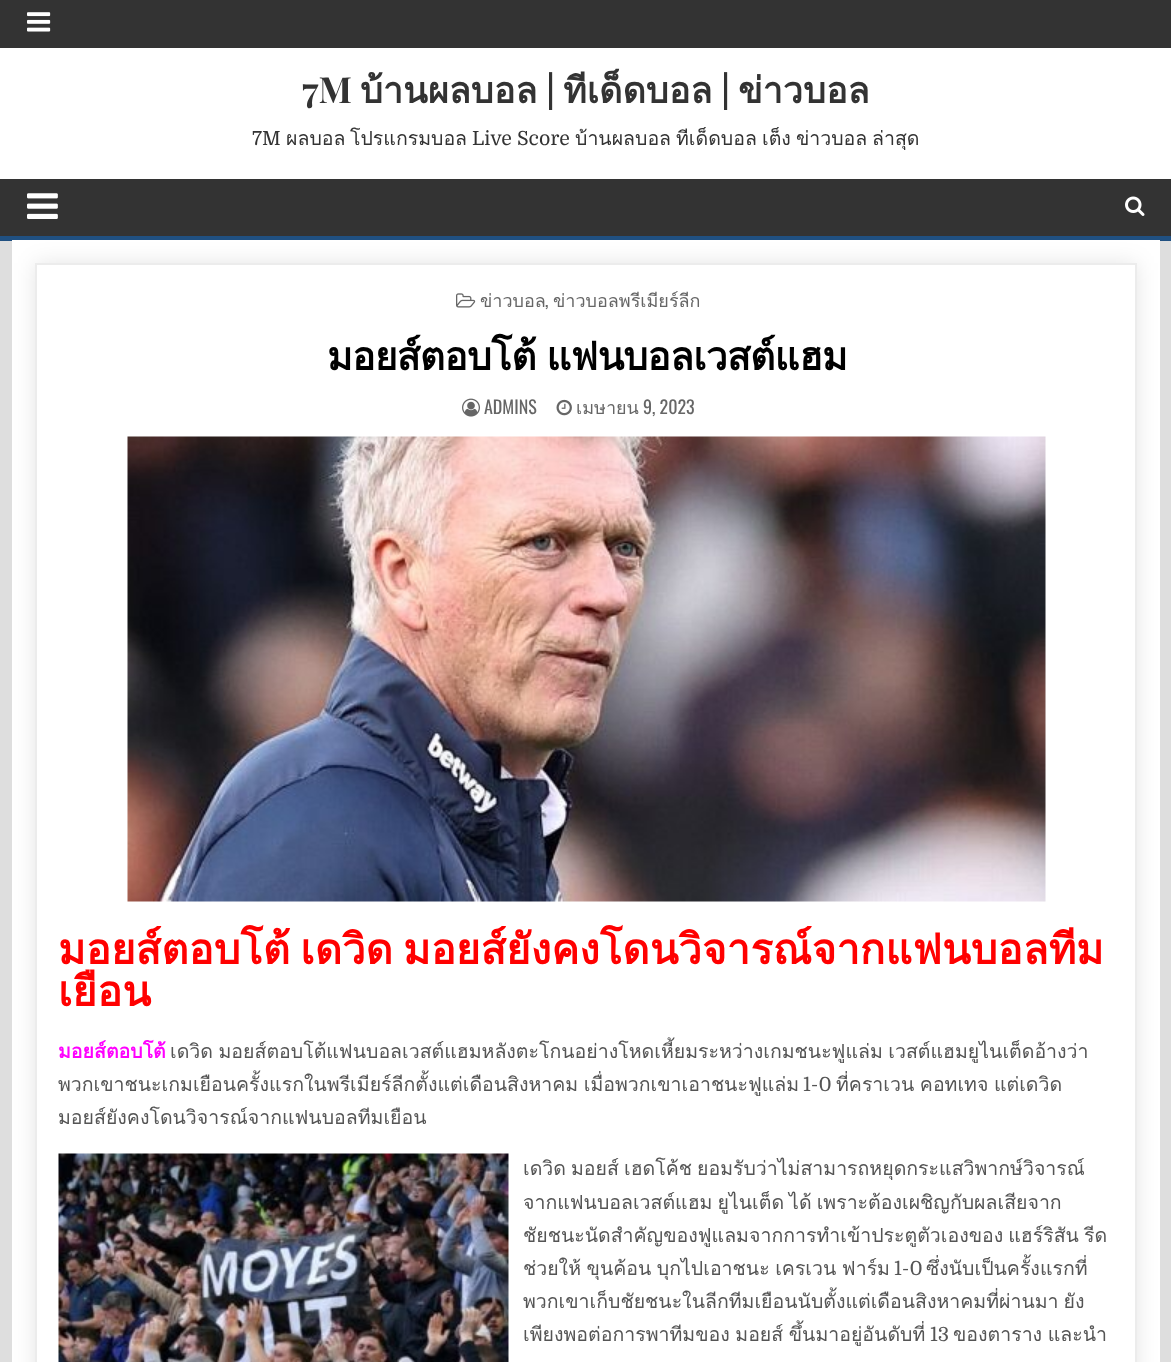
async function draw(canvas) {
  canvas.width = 1171;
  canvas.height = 1362;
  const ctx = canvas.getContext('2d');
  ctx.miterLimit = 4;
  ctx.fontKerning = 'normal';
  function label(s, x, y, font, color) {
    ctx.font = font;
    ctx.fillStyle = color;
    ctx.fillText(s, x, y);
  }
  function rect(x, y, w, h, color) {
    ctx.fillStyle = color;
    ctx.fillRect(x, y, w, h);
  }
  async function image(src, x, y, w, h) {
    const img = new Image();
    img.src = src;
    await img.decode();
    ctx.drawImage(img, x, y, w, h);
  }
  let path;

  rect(0, 0, 1171, 1362, '#dedede');
  rect(0, 0, 1171, 48, '#333');
  await image('assets/img1.png', 27, 12, 24, 20);
  rect(0, 48, 1171, 131, '#fff');
  label('7M', 302, 103, 'bold 36px Playfair Display', '#333');
  label('บ้านผลบอล', 360, 103, 'bold 36px Loma', '#333');
  label('|', 546, 103, 'bold 36px Playfair Display', '#333');
  label('ทีเด็ดบอล', 563, 103, 'bold 36px Loma', '#333');
  label('|', 721, 103, 'bold 36px Playfair Display', '#333');
  label('ข่าวบอล', 738, 103, 'bold 36px Loma', '#333');
  label('7M', 252, 145, '19.5px Domine', '#333');
  label('ผลบอล', 286, 145, '19.5px Loma', '#333');
  label('โปรแกรมบอล', 350, 145, '19.5px Loma', '#333');
  label('Live Score', 472, 145, '19.5px Domine', '#333');
  label('บ้านผลบอล', 575, 145, '19.5px Loma', '#333');
  label('ทีเด็ดบอล', 676, 145, '19.5px Loma', '#333');
  label('เต็ง', 762, 145, '19.5px Loma', '#333');
  label('ข่าวบอล', 796, 145, '19.5px Loma', '#333');
  label('ล่าสุด', 872, 145, '19.5px Loma', '#333');
  rect(0, 179, 1171, 57, '#333');
  rect(0, 236, 1171, 5, '#205081');
  await image('assets/img2.png', 27, 193, 31, 26);
  await image('assets/img3.png', 1125, 196, 20, 20);
  rect(12, 240, 1148, 1122, '#fff');
  ctx.save();
  path = new Path2D('M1 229H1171V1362H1ZM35 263H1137V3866H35Z');
  ctx.clip(path, 'evenodd');
  ctx.fillStyle = '#0000001a';
  ctx.filter = 'blur(11px)';
  ctx.beginPath();
  ctx.rect(35, 263, 1102, 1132);
  ctx.fill();
  ctx.filter = 'none';
  ctx.restore();
  ctx.strokeStyle = '#ececec';
  ctx.lineWidth = 2;
  ctx.strokeRect(36, 264, 1100, 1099);
  await image('assets/img4.png', 456, 293, 20, 15);
  label('ข่าวบอล', 480, 307, '18px Loma', '#666');
  label(',', 545, 307, '18px Oswald', '#666');
  label('ข่าวบอลพรีเมียร์ลีก', 553, 307, '18px Loma', '#666');
  ctx.letterSpacing = '-0.75px';
  ctx.wordSpacing = '-2px';
  label('มอยส์ตอบโต้ แฟนบอลเวสต์แฮม', 327, 370, 'bold 39px Loma', '#000');
  await image('assets/img5.png', 462, 398, 18, 19);
  ctx.letterSpacing = '0px';
  ctx.wordSpacing = '0px';
  label('ADMINS', 484, 414, '18px Oswald', '#666');
  await image('assets/img6.png', 556, 399, 16, 17);
  label('เมษายน', 576, 414, '18px Loma', '#666');
  label('9, 2023', 643, 414, '18px Oswald', '#666');
  await image('assets/img7.png', 127, 436, 919, 466);
  ctx.wordSpacing = '-4px';
  label('มอยส์ตอบโต้ เดวิด มอยส์ยังคงโดนวิจารณ์จากแฟนบอลทีม', 58, 964, 'bold 42px Loma', '#f00');
  ctx.wordSpacing = '0px';
  label('เยือน', 58, 1006, 'bold 42px Loma', '#f00');
  label('มอยส์ตอบโต้', 58, 1058, 'bold 19.5px Loma', '#f0f');
  ctx.wordSpacing = '-1px';
  label('เดวิด มอยส์ตอบโต้แฟนบอลเวสต์แฮมหลังตะโกนอย่างโหดเหี้ยมระหว่างเกมชนะฟูแล่ม เวสต์แฮมยูไนเต็ดอ้างว่า', 170, 1058, '19.5px Loma', '#555');
  label('พวกเขาชนะเกมเยือนครั้งแรกในพรีเมียร์ลีกตั้งแต่เดือนสิงหาคม เมื่อพวกเขาเอาชนะฟูแล่ม', 58, 1091, '19.5px Loma', '#555');
  ctx.wordSpacing = '0px';
  label('1-0', 803, 1091, '19.5px Domine', '#555');
  ctx.wordSpacing = '-1px';
  label('ที่คราเวน คอทเทจ แต่เดวิด', 836, 1091, '19.5px Loma', '#555');
  ctx.wordSpacing = '0px';
  label('มอยส์ยังคงโดนวิจารณ์จากแฟนบอลทีมเยือน', 58, 1124, '19.5px Loma', '#555');
  await image('assets/img8.png', 58, 1153, 451, 209);
  ctx.wordSpacing = '-1.5px';
  label('เดวิด มอยส์ เฮดโค้ช ยอมรับว่าไม่สามารถหยุดกระแสวิพากษ์วิจารณ์', 523, 1175, '19.5px Loma', '#555');
  label('จากแฟนบอลเวสต์แฮม ยูไนเต็ด ได้ เพราะต้องเผชิญกับผลเสียจาก', 523, 1209, '19.5px Loma', '#555');
  ctx.wordSpacing = '0px';
  label('ชัยชนะนัดสำคัญของฟูแลม', 523, 1242, '19.5px Loma', '#555');
  ctx.wordSpacing = '-1.5px';
  label('จากการทำเข้าประตูตัวเองของ แฮร์ริสัน รีด', 749, 1242, '19.5px Loma', '#555');
  ctx.wordSpacing = '-1px';
  label('ช่วยให้ ขุนค้อน บุกไปเอาชนะ เครเวน ฟาร์ม', 523, 1275, '19.5px Loma', '#555');
  ctx.wordSpacing = '0px';
  label('1-0', 894, 1275, '19.5px Domine', '#555');
  label('ซึ่งนับเป็นครั้งแรกที่', 926, 1275, '19.5px Loma', '#555');
  ctx.wordSpacing = '-1.5px';
  label('พวกเขาเก็บชัยชนะในลีกทีมเยือนนับตั้งแต่เดือนสิงหาคมที่ผ่านมา ยัง', 523, 1308, '19.5px Loma', '#555');
  ctx.wordSpacing = '-1px';
  label('เพียงพอต่อการพาทีมของ มอยส์ ขึ้นมาอยู่อันดับที่', 523, 1341, '19.5px Loma', '#555');
  ctx.wordSpacing = '0px';
  label('13', 930, 1341, '19.5px Domine', '#555');
  ctx.wordSpacing = '-1px';
  label('ของตาราง และนำ', 953, 1341, '19.5px Loma', '#555');
}

draw(document.querySelector('canvas'));
